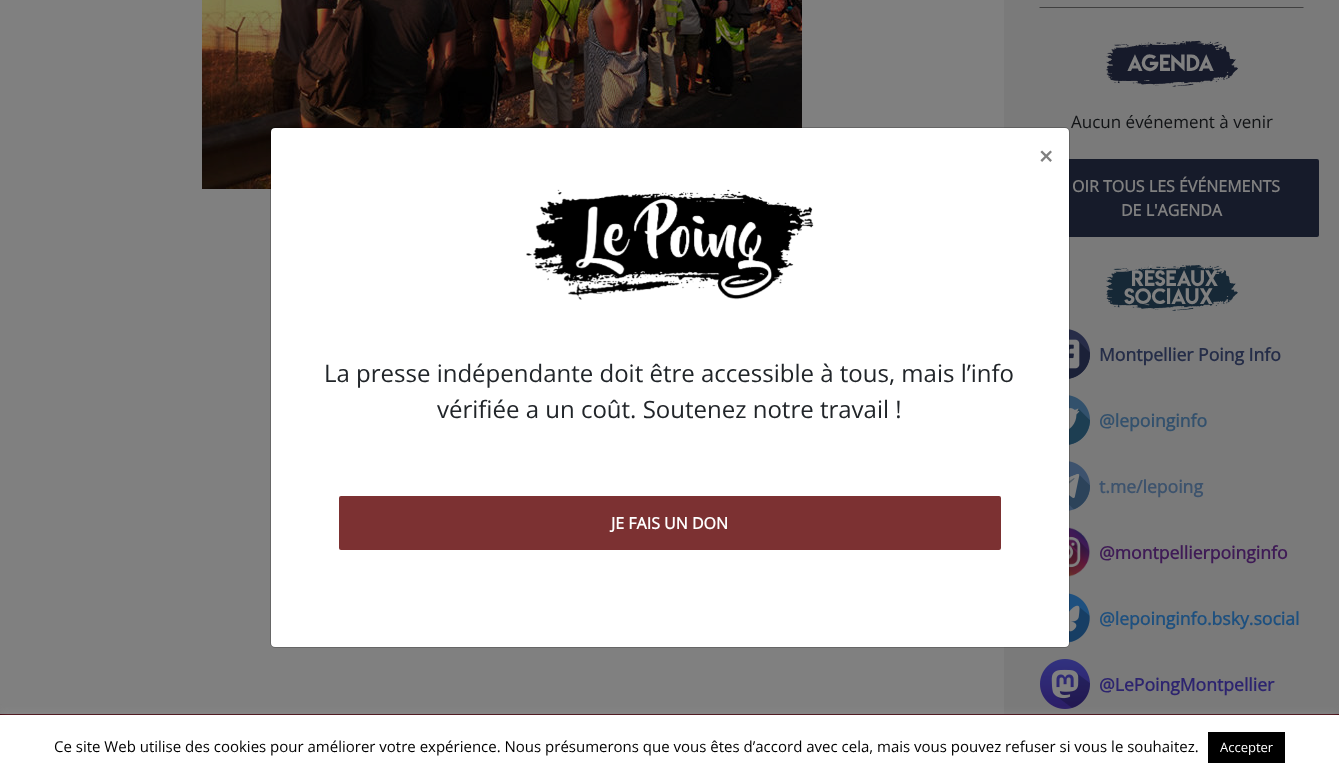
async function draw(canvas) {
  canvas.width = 1339;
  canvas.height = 775;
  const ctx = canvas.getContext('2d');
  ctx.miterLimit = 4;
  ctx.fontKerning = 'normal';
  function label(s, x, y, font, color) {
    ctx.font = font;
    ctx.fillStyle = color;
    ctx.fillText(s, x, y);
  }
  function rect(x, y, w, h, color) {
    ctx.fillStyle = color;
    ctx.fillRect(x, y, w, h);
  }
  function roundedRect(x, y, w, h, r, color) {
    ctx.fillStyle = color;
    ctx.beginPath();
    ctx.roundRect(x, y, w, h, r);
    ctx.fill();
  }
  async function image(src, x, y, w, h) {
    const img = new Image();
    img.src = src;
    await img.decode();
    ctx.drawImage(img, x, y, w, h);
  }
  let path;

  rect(0, 0, 1339, 775, '#808080');
  await image('assets/img2.png', 202, 0, 600, 189);
  rect(1004, 0, 335, 714, '#7a7a7a');
  roundedRect(1024, 159, 295, 78, 2, '#161b2a');
  roundedRect(271, 128, 798, 519, 4, '#fff');
  await image('assets/img5.png', 1069, 329, 21, 50);
  await image('assets/img6.png', 1069, 395, 21, 50);
  await image('assets/img7.png', 1069, 461, 21, 50);
  await image('assets/img8.png', 1069, 527, 21, 50);
  await image('assets/img9.png', 1069, 593, 21, 50);
  ctx.beginPath();
  ctx.roundRect(270.5, 127.5, 799, 520, 4.5);
  ctx.strokeStyle = '#00000033';
  ctx.stroke();
  label('×', 1039, 165, 'bold 24px Open Sans', '#808080');
  await image('assets/img1.png', 526, 189, 288, 111);
  label('La presse indépendante doit être accessible à tous, mais l’info', 324, 382, '24px Open Sans', '#212529');
  label('vérifiée a un coût. Soutenez notre travail !', 437, 418, '24px Open Sans', '#212529');
  roundedRect(339, 496, 662, 54, 2, '#7c3132');
  label('JE FAIS UN DON', 611, 529, 'bold 16px Open Sans', '#fff');
  ctx.fillStyle = '#404040';
  path = new Path2D('M1304 8H1039L1040 7H1303Z');
  ctx.fill(path);
  await image('assets/img3.png', 1106, 40, 132, 47);
  label('AGENDA', 1127, 71, '21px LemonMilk', '#808080');
  label('Aucun événement à venir', 1071, 128, '17px Open Sans', '#111315');
  label('OIR TOUS LES ÉVÉNEMENTS', 1072, 192, 'bold 16px Open Sans', '#808080');
  label('DE L\'AGENDA', 1121, 216, 'bold 16px Open Sans', '#808080');
  await image('assets/img4.png', 1106, 265, 132, 46);
  label('RÉSEAUX', 1131, 286, '20px LemonMilk', '#808080');
  label('SOCIAUX', 1124, 304, '20px LemonMilk', '#808080');
  label('Montpellier Poing Info', 1099, 361, 'bold 17.6px Open Sans', '#252d48');
  label('@lepoinginfo', 1099, 427, 'bold 17.6px Open Sans', '#33516d');
  label('t.me/lepoing', 1099, 493, 'bold 17.6px Open Sans', '#3d536d');
  label('@montpellierpoinginfo', 1099, 559, 'bold 17.6px Open Sans', '#3f1b56');
  label('@lepoinginfo.bsky.social', 1099, 625, 'bold 17.6px Open Sans', '#1e507f');
  await image('assets/img10.png', 1040, 659, 50, 50);
  label('@LePoingMontpellier', 1099, 691, 'bold 17.6px Open Sans', '#2d246f');
  rect(0, 714, 1339, 1, '#40010a');
  ctx.fillStyle = '#acabab4d';
  ctx.filter = 'blur(5px)';
  ctx.beginPath();
  ctx.rect(0, 714, 1339, 60);
  ctx.fill();
  ctx.filter = 'none';
  rect(0, 715, 1339, 60, '#fff');
  label('Ce site Web utilise des cookies pour améliorer votre expérience. Nous présumerons que vous êtes d’accord avec cela, mais vous pouvez refuser si vous le souhaitez.', 54, 752, '15px Open Sans', '#000');
  rect(1208, 732, 77, 31, '#000');
  label('Accepter', 1220, 752, '13px Open Sans', '#fff');
}

draw(document.querySelector('canvas'));
